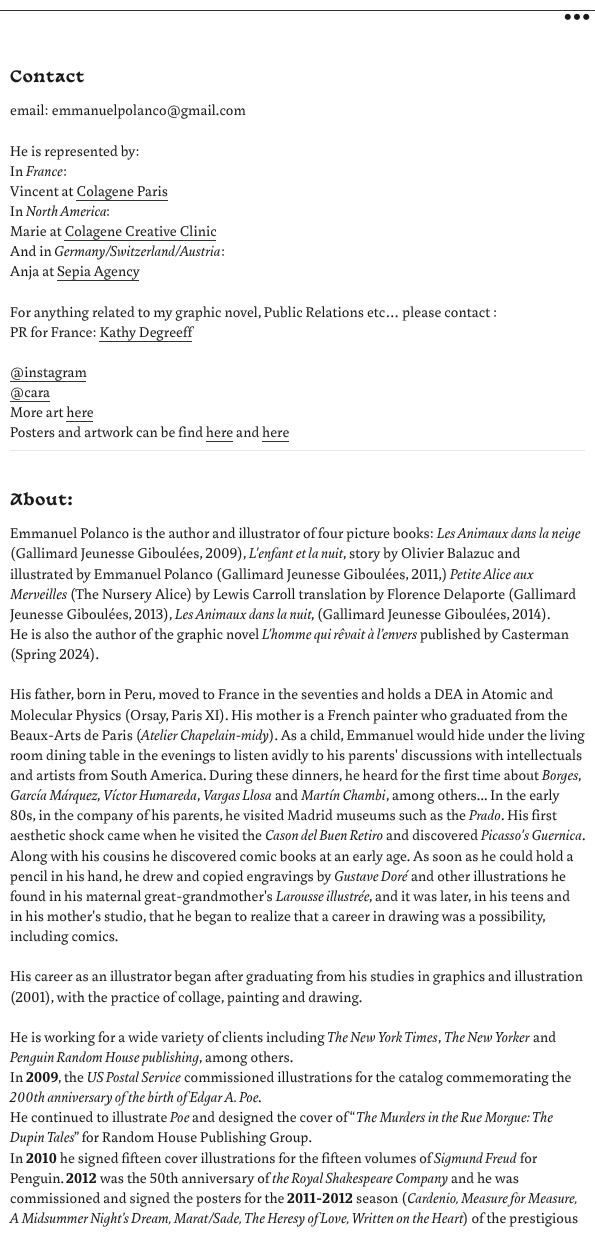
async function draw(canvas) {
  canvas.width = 595;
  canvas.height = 1236;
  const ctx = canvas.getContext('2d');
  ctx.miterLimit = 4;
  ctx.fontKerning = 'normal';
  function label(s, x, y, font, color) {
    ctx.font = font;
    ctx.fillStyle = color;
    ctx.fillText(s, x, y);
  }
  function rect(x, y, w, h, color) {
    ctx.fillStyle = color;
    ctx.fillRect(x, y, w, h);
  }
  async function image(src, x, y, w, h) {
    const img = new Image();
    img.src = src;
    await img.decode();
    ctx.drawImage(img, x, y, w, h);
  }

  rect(0, 0, 595, 1236, '#fff');
  await image('assets/img1.png', 564, 13, 26, 7);
  rect(0, 10, 595, 1, '#333');
  ctx.letterSpacing = '0.5px';
  label('Contact', 10, 82, 'bold 15.5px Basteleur', '#1a1a1a');
  ctx.letterSpacing = '0.15px';
  label('email: emmanuelpolanco@gmail.com', 10, 115, '15.5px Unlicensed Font', '#1a1a1a');
  label('He is represented by:', 10, 156, '15.5px Unlicensed Font', '#1a1a1a');
  label('In', 10, 176, '15.5px Unlicensed Font', '#1a1a1a');
  label('France', 26, 176, 'italic 15.5px Unlicensed Font', '#1a1a1a');
  label(':', 63, 176, '15.5px Unlicensed Font', '#1a1a1a');
  label('Vincent at Colagene Paris', 10, 196, '15.5px Unlicensed Font', '#1a1a1a');
  rect(76, 200, 92, 1, '#333');
  label('In', 10, 216, '15.5px Unlicensed Font', '#1a1a1a');
  label('North America', 26, 216, 'italic 15.5px Unlicensed Font', '#1a1a1a');
  label(':', 106, 216, '15.5px Unlicensed Font', '#1a1a1a');
  label('Marie at Colagene Creative Clinic', 10, 236, '15.5px Unlicensed Font', '#1a1a1a');
  rect(64, 240, 152, 1, '#333');
  label('And in', 10, 256, '15.5px Unlicensed Font', '#1a1a1a');
  label('Germany/Switzerland/Austria', 54, 256, 'italic 15.5px Unlicensed Font', '#1a1a1a');
  label(':', 221, 256, '15.5px Unlicensed Font', '#1a1a1a');
  label('Anja at Sepia Agency', 10, 276, '15.5px Unlicensed Font', '#1a1a1a');
  rect(57, 280, 82, 1, '#333');
  label('For anything related to my graphic novel, Public Relations etc… please contact :', 10, 317, '15.5px Unlicensed Font', '#1a1a1a');
  label('PR for France: Kathy Degreeff', 10, 337, '15.5px Unlicensed Font', '#1a1a1a');
  rect(99, 341, 93, 1, '#333');
  label('@instagram', 10, 377, '15.5px Unlicensed Font', '#1a1a1a');
  rect(10, 381, 76, 1, '#333');
  label('@cara', 10, 397, '15.5px Unlicensed Font', '#1a1a1a');
  rect(10, 401, 40, 1, '#333');
  label('More art here', 10, 417, '15.5px Unlicensed Font', '#1a1a1a');
  rect(66, 421, 27, 1, '#333');
  label('Posters and artwork can be find here and here', 10, 437, '15.5px Unlicensed Font', '#1a1a1a');
  rect(206, 441, 27, 1, '#333');
  rect(262, 441, 27, 1, '#333');
  rect(10, 450, 575, 1, '#e5e5e5');
  ctx.letterSpacing = '0.5px';
  label('About:', 10, 505, 'bold 15.5px Basteleur', '#1a1a1a');
  ctx.letterSpacing = '0.15px';
  label('Emmanuel Polanco is the author and illustrator of four picture books:', 10, 538, '15.5px Unlicensed Font', '#1a1a1a');
  label('Les Animaux dans la neige', 437, 538, 'italic 15.5px Unlicensed Font', '#1a1a1a');
  label('(Gallimard Jeunesse Giboulées, 2009),', 10, 558, '15.5px Unlicensed Font', '#1a1a1a');
  label('L\'enfant et la nuit', 249, 558, 'italic 15.5px Unlicensed Font', '#1a1a1a');
  label(', story by Olivier Balazuc and', 343, 558, '15.5px Unlicensed Font', '#1a1a1a');
  label('illustrated by Emmanuel Polanco (Gallimard Jeunesse Giboulées, 2011,)', 10, 579, '15.5px Unlicensed Font', '#1a1a1a');
  label('Petite Alice aux', 450, 579, 'italic 15.5px Unlicensed Font', '#1a1a1a');
  label('Merveilles', 10, 599, 'italic 15.5px Unlicensed Font', '#1a1a1a');
  label('(The Nursery Alice) by Lewis Carroll translation by Florence Delaporte (Gallimard', 70, 599, '15.5px Unlicensed Font', '#1a1a1a');
  label('Jeunesse Giboulées, 2013),', 10, 619, '15.5px Unlicensed Font', '#1a1a1a');
  label('Les Animaux dans la nuit', 175, 619, 'italic 15.5px Unlicensed Font', '#1a1a1a');
  label(', (Gallimard Jeunesse Giboulées, 2014).', 311, 619, '15.5px Unlicensed Font', '#1a1a1a');
  label('He is also the author of the graphic novel', 10, 639, '15.5px Unlicensed Font', '#1a1a1a');
  label('L’homme qui rêvait à l’envers', 262, 639, 'italic 15.5px Unlicensed Font', '#1a1a1a');
  label('published by Casterman', 420, 639, '15.5px Unlicensed Font', '#1a1a1a');
  label('(Spring 2024).', 10, 659, '15.5px Unlicensed Font', '#1a1a1a');
  label('His father, born in Peru, moved to France in the seventies and holds a DEA in Atomic and', 10, 699, '15.5px Unlicensed Font', '#1a1a1a');
  label('Molecular Physics (Orsay, Paris XI). His mother is a French painter who graduated from the', 10, 720, '15.5px Unlicensed Font', '#1a1a1a');
  label('Beaux-Arts de Paris (', 10, 740, '15.5px Unlicensed Font', '#1a1a1a');
  label('Atelier Chapelain-midy', 141, 740, 'italic 15.5px Unlicensed Font', '#1a1a1a');
  label('). As a child, Emmanuel would hide under the living', 269, 740, '15.5px Unlicensed Font', '#1a1a1a');
  label('room dining table in the evenings to listen avidly to his parents\' discussions with intellectuals', 10, 760, '15.5px Unlicensed Font', '#1a1a1a');
  label('and artists from South America. During these dinners, he heard for the first time about', 10, 780, '15.5px Unlicensed Font', '#1a1a1a');
  label('Borges', 542, 780, 'italic 15.5px Unlicensed Font', '#1a1a1a');
  label(',', 578, 780, '15.5px Unlicensed Font', '#1a1a1a');
  label('García Márquez', 10, 800, 'italic 15.5px Unlicensed Font', '#1a1a1a');
  label(',', 97, 800, '15.5px Unlicensed Font', '#1a1a1a');
  label('Víctor Humareda', 103, 800, 'italic 15.5px Unlicensed Font', '#1a1a1a');
  label(',', 197, 800, '15.5px Unlicensed Font', '#1a1a1a');
  label('Vargas Llosa', 203, 800, 'italic 15.5px Unlicensed Font', '#1a1a1a');
  label('and', 275, 800, '15.5px Unlicensed Font', '#1a1a1a');
  label('Martín Chambi', 301, 800, 'italic 15.5px Unlicensed Font', '#1a1a1a');
  label(', among others... In the early', 386, 800, '15.5px Unlicensed Font', '#1a1a1a');
  label('80s, in the company of his parents, he visited Madrid museums such as the', 10, 820, '15.5px Unlicensed Font', '#1a1a1a');
  label('Prado', 469, 820, 'italic 15.5px Unlicensed Font', '#1a1a1a');
  label('. His first', 501, 820, '15.5px Unlicensed Font', '#1a1a1a');
  label('aesthetic shock came when he visited the', 10, 840, '15.5px Unlicensed Font', '#1a1a1a');
  label('Cason del Buen Retiro', 265, 840, 'italic 15.5px Unlicensed Font', '#1a1a1a');
  label('and discovered', 386, 840, '15.5px Unlicensed Font', '#1a1a1a');
  label('Picasso\'s Guernica', 481, 840, 'italic 15.5px Unlicensed Font', '#1a1a1a');
  label('.', 582, 840, '15.5px Unlicensed Font', '#1a1a1a');
  label('Along with his cousins he discovered comic books at an early age. As soon as he could hold a', 10, 861, '15.5px Unlicensed Font', '#1a1a1a');
  label('pencil in his hand, he drew and copied engravings by', 10, 881, '15.5px Unlicensed Font', '#1a1a1a');
  label('Gustave Doré', 334, 881, 'italic 15.5px Unlicensed Font', '#1a1a1a');
  label('and other illustrations he', 411, 881, '15.5px Unlicensed Font', '#1a1a1a');
  label('found in his maternal great-grandmother\'s', 10, 901, '15.5px Unlicensed Font', '#1a1a1a');
  label('Larousse illustrée', 276, 901, 'italic 15.5px Unlicensed Font', '#1a1a1a');
  label(', and it was later, in his teens and', 369, 901, '15.5px Unlicensed Font', '#1a1a1a');
  label('in his mother\'s studio, that he began to realize that a career in drawing was a possibility,', 10, 921, '15.5px Unlicensed Font', '#1a1a1a');
  label('including comics.', 10, 941, '15.5px Unlicensed Font', '#1a1a1a');
  label('His career as an illustrator began after graduating from his studies in graphics and illustration', 10, 981, '15.5px Unlicensed Font', '#1a1a1a');
  label('(2001), with the practice of collage, painting and drawing.', 10, 1002, '15.5px Unlicensed Font', '#1a1a1a');
  label('He is working for a wide variety of clients including', 10, 1042, '15.5px Unlicensed Font', '#1a1a1a');
  label('The New York Times', 327, 1042, 'italic 15.5px Unlicensed Font', '#1a1a1a');
  label(',', 438, 1042, '15.5px Unlicensed Font', '#1a1a1a');
  label('The New Yorker', 444, 1042, 'italic 15.5px Unlicensed Font', '#1a1a1a');
  label('and', 533, 1042, '15.5px Unlicensed Font', '#1a1a1a');
  label('Penguin Random House publishing', 10, 1062, 'italic 15.5px Unlicensed Font', '#1a1a1a');
  label(', among others.', 199, 1062, '15.5px Unlicensed Font', '#1a1a1a');
  label('In', 10, 1082, '15.5px Unlicensed Font', '#1a1a1a');
  label('2009', 26, 1082, 'bold 15.5px Unlicensed Font', '#1a1a1a');
  label(', the', 58, 1082, '15.5px Unlicensed Font', '#1a1a1a');
  label('US Postal Service', 87, 1082, 'italic 15.5px Unlicensed Font', '#1a1a1a');
  label('commissioned illustrations for the catalog commemorating the', 184, 1082, '15.5px Unlicensed Font', '#1a1a1a');
  label('200th anniversary of the birth of Edgar A. Poe', 10, 1102, 'italic 15.5px Unlicensed Font', '#1a1a1a');
  label('.', 258, 1102, '15.5px Unlicensed Font', '#1a1a1a');
  label('He continued to illustrate', 10, 1122, '15.5px Unlicensed Font', '#1a1a1a');
  label('Poe', 170, 1122, 'italic 15.5px Unlicensed Font', '#1a1a1a');
  label('and designed the cover of “', 192, 1122, '15.5px Unlicensed Font', '#1a1a1a');
  label('The Murders in the Rue Morgue: The', 356, 1122, 'italic 15.5px Unlicensed Font', '#1a1a1a');
  label('Dupin Tales', 10, 1142, 'italic 15.5px Unlicensed Font', '#1a1a1a');
  label('” for Random House Publishing Group.', 74, 1142, '15.5px Unlicensed Font', '#1a1a1a');
  label('In', 10, 1163, '15.5px Unlicensed Font', '#1a1a1a');
  label('2010', 26, 1163, 'bold 15.5px Unlicensed Font', '#1a1a1a');
  label('he signed fifteen cover illustrations for the fifteen volumes of', 60, 1163, '15.5px Unlicensed Font', '#1a1a1a');
  label('Sigmund Freud', 434, 1163, 'italic 15.5px Unlicensed Font', '#1a1a1a');
  label('for', 520, 1163, '15.5px Unlicensed Font', '#1a1a1a');
  label('Penguin.', 10, 1183, '15.5px Unlicensed Font', '#1a1a1a');
  label('2012', 66, 1183, 'bold 15.5px Unlicensed Font', '#1a1a1a');
  label('was the 50th anniversary of', 100, 1183, '15.5px Unlicensed Font', '#1a1a1a');
  label('the Royal Shakespeare Company', 272, 1183, 'italic 15.5px Unlicensed Font', '#1a1a1a');
  label('and he was', 451, 1183, '15.5px Unlicensed Font', '#1a1a1a');
  label('commissioned and signed the posters for the', 10, 1203, '15.5px Unlicensed Font', '#1a1a1a');
  label('2011-2012', 287, 1203, 'bold 15.5px Unlicensed Font', '#1a1a1a');
  label('season (', 356, 1203, '15.5px Unlicensed Font', '#1a1a1a');
  label('Cardenio, Measure for Measure,', 407, 1203, 'italic 15.5px Unlicensed Font', '#1a1a1a');
  label('A Midsummer Night’s Dream, Marat/Sade, The Heresy of Love, Written on the Heart', 10, 1223, 'italic 15.5px Unlicensed Font', '#1a1a1a');
  label(') of the prestigious', 463, 1223, '15.5px Unlicensed Font', '#1a1a1a');
}

draw(document.querySelector('canvas'));
